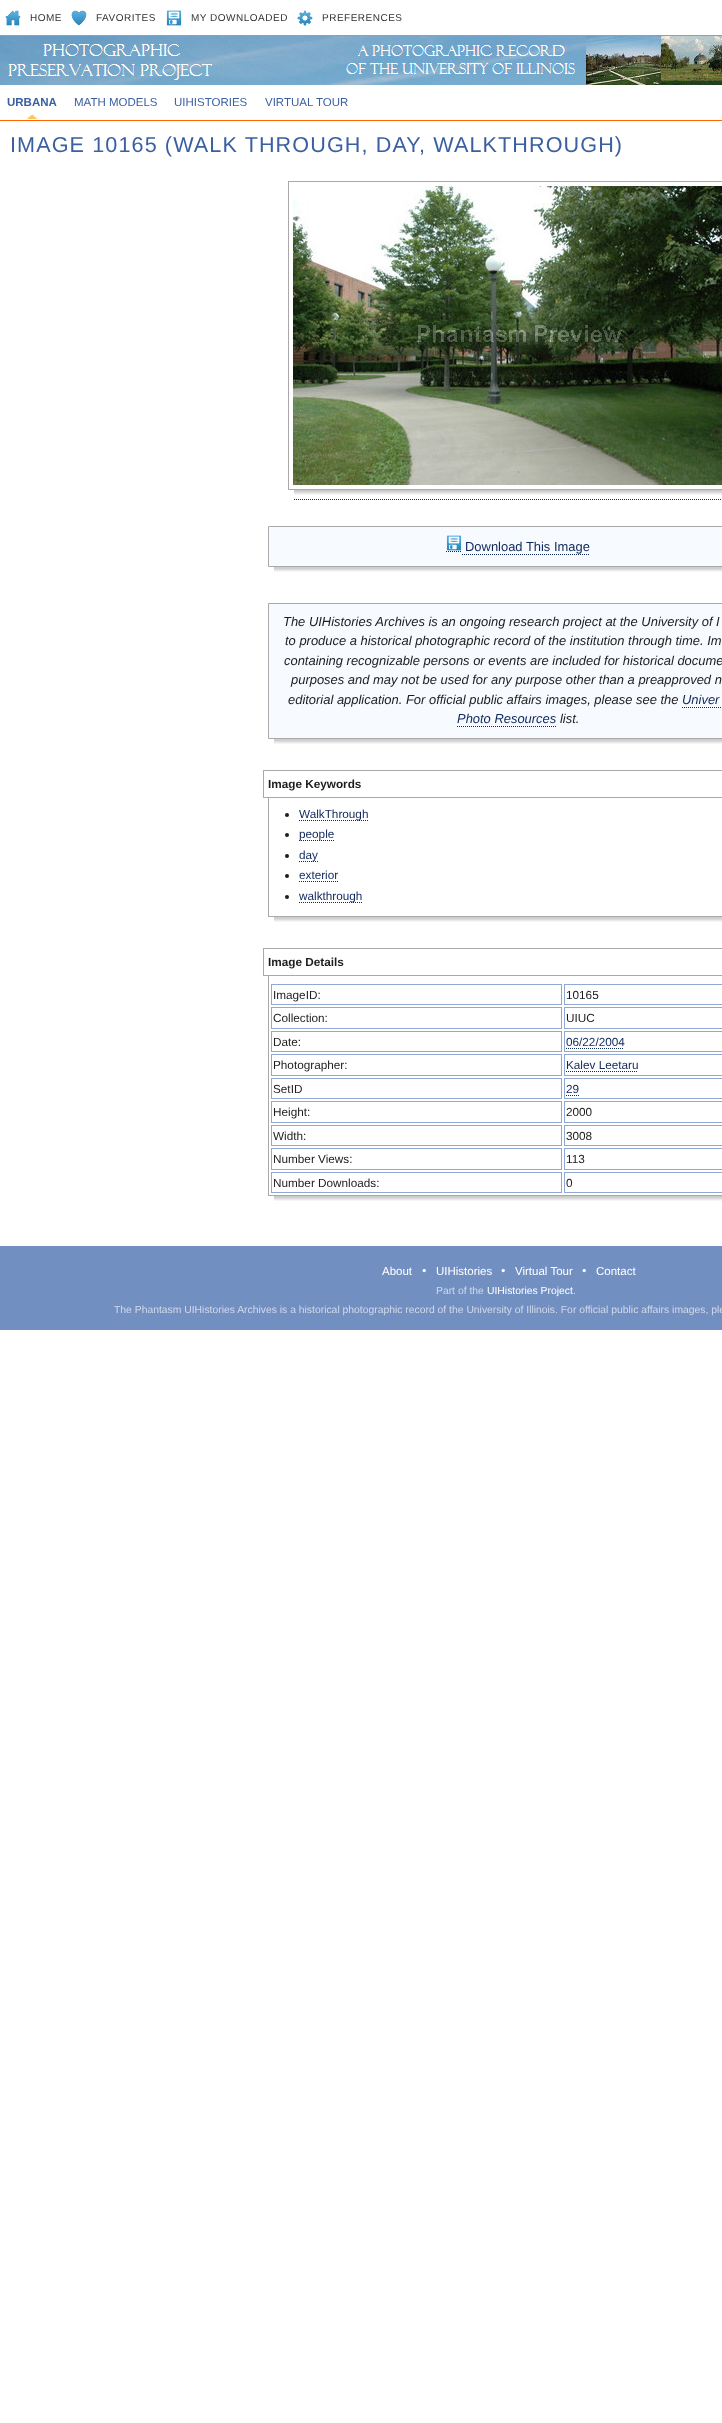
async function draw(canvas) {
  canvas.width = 722;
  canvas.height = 2423;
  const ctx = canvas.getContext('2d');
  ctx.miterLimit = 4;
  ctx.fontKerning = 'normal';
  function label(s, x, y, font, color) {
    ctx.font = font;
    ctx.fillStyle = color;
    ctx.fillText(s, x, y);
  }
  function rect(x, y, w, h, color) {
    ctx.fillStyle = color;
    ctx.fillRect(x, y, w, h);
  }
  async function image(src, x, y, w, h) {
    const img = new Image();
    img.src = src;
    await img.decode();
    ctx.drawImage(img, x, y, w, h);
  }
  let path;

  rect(0, 0, 722, 2423, '#fff');
  rect(0, 35, 722, 1, '#9d9d9d');
  await image('assets/img1.png', 5, 10, 16, 16);
  ctx.letterSpacing = '0.5px';
  label('HOME', 30, 21, '10px Liberation Sans', '#333');
  await image('assets/img2.png', 71, 10, 16, 16);
  label('FAVORITES', 96, 21, '10px Liberation Sans', '#333');
  await image('assets/img3.png', 166, 10, 16, 16);
  label('MY DOWNLOADED', 191, 21, '10px Liberation Sans', '#333');
  await image('assets/img4.png', 297, 10, 16, 16);
  label('PREFERENCES', 322, 21, '10px Liberation Sans', '#333');
  await image('assets/img5.png', 0, 36, 722, 49);
  rect(0, 120, 722, 1, '#f60');
  await image('assets/img6.png', 23, 90, 18, 29);
  ctx.letterSpacing = '0px';
  label('URBANA', 7, 106, 'bold 11.5px Liberation Sans', '#3b60a1');
  label('MATH MODELS', 74, 106, '11.5px Liberation Sans', '#3b60a1');
  label('UIHISTORIES', 174, 106, '11.5px Liberation Sans', '#3b60a1');
  label('VIRTUAL TOUR', 265, 106, '11.5px Liberation Sans', '#3b60a1');
  ctx.letterSpacing = '1.1px';
  label('IMAGE 10165 (WALK THROUGH, DAY, WALKTHROUGH)', 10, 152, '21.6px Liberation Sans', '#3b60a1');
  await image('assets/img7.png', 294, 490, 428, 5);
  ctx.strokeStyle = '#a9a9a9';
  ctx.strokeRect(288.5, 181.5, 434, 308);
  await image('assets/img8.png', 293, 186, 429, 299);
  path = new Path2D('M294 499.5H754');
  ctx.strokeStyle = '#0f285c';
  ctx.setLineDash([1, 1]);
  ctx.stroke(path);
  await image('assets/img9.png', 274, 567, 448, 5);
  ctx.fillStyle = '#f7faff';
  ctx.beginPath();
  ctx.rect(268.5, 526.5, 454, 40);
  ctx.fill();
  ctx.strokeStyle = '#a9a9a9';
  ctx.setLineDash([]);
  ctx.stroke();
  await image('assets/img10.png', 446, 535, 16, 16);
  ctx.letterSpacing = '0px';
  label('Download This Image', 465, 551, '12.95px Liberation Sans', '#0f285c');
  path = new Path2D('M446 551.5H462');
  ctx.strokeStyle = '#0f285c';
  ctx.setLineDash([1, 1]);
  ctx.stroke(path);
  path = new Path2D('M462 554.5H590');
  ctx.stroke(path);
  await image('assets/img9.png', 274, 739, 448, 5);
  ctx.fillStyle = '#f7faff';
  ctx.beginPath();
  ctx.rect(268.5, 603.5, 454, 135);
  ctx.fill();
  ctx.strokeStyle = '#a9a9a9';
  ctx.setLineDash([]);
  ctx.stroke();
  label('The UIHistories Archives is an ongoing research project at the University of I', 283, 626, 'italic 12.95px Liberation Sans', '#1d1d1d');
  label('to produce a historical photographic record of the institution through time. Im', 285, 645, 'italic 12.95px Liberation Sans', '#1d1d1d');
  label('containing recognizable persons or events are included for historical docume', 284, 665, 'italic 12.95px Liberation Sans', '#1d1d1d');
  label('purposes and may not be used for any purpose other than a preapproved n', 291, 684, 'italic 12.95px Liberation Sans', '#1d1d1d');
  label('editorial application. For official public affairs images, please see the', 288, 704, 'italic 12.95px Liberation Sans', '#1d1d1d');
  label('Univer', 682, 704, 'italic 12.95px Liberation Sans', '#0f285c');
  path = new Path2D('M682 707.5H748');
  ctx.strokeStyle = '#0f285c';
  ctx.setLineDash([1, 1]);
  ctx.stroke(path);
  label('Photo Resources', 457, 723, 'italic 12.95px Liberation Sans', '#0f285c');
  path = new Path2D('M457 726.5H556');
  ctx.stroke(path);
  label('list.', 560, 723, 'italic 12.95px Liberation Sans', '#1d1d1d');
  await image('assets/img9.png', 274, 917, 448, 5);
  ctx.strokeStyle = '#a9a9a9';
  ctx.setLineDash([]);
  ctx.strokeRect(268.5, 775.5, 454, 141);
  rect(268, 775, 454, 22, '#fff');
  ctx.strokeRect(263.5, 770.5, 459, 27);
  label('Image Keywords', 268, 788, 'bold 11.75px Liberation Sans', '#1d1d1d');
  ctx.beginPath();
  ctx.arc(287, 815, 2, 0, 2 * Math.PI);
  ctx.fill();
  path = new Path2D('M299 820.5H368');
  ctx.strokeStyle = '#0f285c';
  ctx.setLineDash([1, 1]);
  ctx.stroke(path);
  label('WalkThrough', 299, 818, '11.75px Liberation Sans', '#0f285c');
  ctx.fillStyle = '#1d1d1d';
  ctx.beginPath();
  ctx.arc(287, 835, 2, 0, 2 * Math.PI);
  ctx.fill();
  path = new Path2D('M299 840.5H334');
  ctx.stroke(path);
  label('people', 299, 838, '11.75px Liberation Sans', '#0f285c');
  ctx.fillStyle = '#1d1d1d';
  ctx.beginPath();
  ctx.arc(287, 856, 2, 0, 2 * Math.PI);
  ctx.fill();
  path = new Path2D('M299 861.5H318');
  ctx.stroke(path);
  label('day', 299, 859, '11.75px Liberation Sans', '#0f285c');
  ctx.fillStyle = '#1d1d1d';
  ctx.beginPath();
  ctx.arc(287, 876, 2, 0, 2 * Math.PI);
  ctx.fill();
  label('exterior', 299, 879, '11.75px Liberation Sans', '#0f285c');
  path = new Path2D('M299 881.5H338');
  ctx.stroke(path);
  ctx.fillStyle = '#1d1d1d';
  ctx.beginPath();
  ctx.arc(287, 897, 2, 0, 2 * Math.PI);
  ctx.fill();
  path = new Path2D('M299 902.5H362');
  ctx.stroke(path);
  label('walkthrough', 299, 900, '11.75px Liberation Sans', '#0f285c');
  await image('assets/img11.png', 274, 1196, 448, 5);
  ctx.strokeStyle = '#a9a9a9';
  ctx.setLineDash([]);
  ctx.strokeRect(268.5, 953.5, 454, 242);
  rect(268, 953, 454, 22, '#fff');
  ctx.strokeRect(263.5, 948.5, 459, 27);
  label('Image Details', 268, 966, 'bold 11.75px Liberation Sans', '#1d1d1d');
  ctx.strokeStyle = '#8fa8d4';
  ctx.strokeRect(271.5, 984.5, 290, 20);
  label('ImageID:', 273, 999, '11.75px Liberation Sans', '#1d1d1d');
  ctx.strokeRect(564.5, 984.5, 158, 20);
  label('10165', 566, 999, '11.75px Liberation Sans', '#1d1d1d');
  ctx.strokeRect(271.5, 1007.5, 290, 21);
  label('Collection:', 273, 1022, '11.75px Liberation Sans', '#1d1d1d');
  ctx.strokeRect(564.5, 1007.5, 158, 21);
  label('UIUC', 566, 1022, '11.75px Liberation Sans', '#1d1d1d');
  ctx.strokeRect(271.5, 1031.5, 290, 20);
  label('Date:', 273, 1046, '11.75px Liberation Sans', '#1d1d1d');
  ctx.strokeRect(564.5, 1031.5, 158, 20);
  label('06/22/2004', 566, 1046, '11.75px Liberation Sans', '#0f285c');
  path = new Path2D('M566 1048.5H624');
  ctx.strokeStyle = '#0f285c';
  ctx.setLineDash([1, 1]);
  ctx.stroke(path);
  ctx.strokeStyle = '#8fa8d4';
  ctx.setLineDash([]);
  ctx.strokeRect(271.5, 1054.5, 290, 21);
  label('Photographer:', 273, 1069, '11.75px Liberation Sans', '#1d1d1d');
  ctx.strokeRect(564.5, 1054.5, 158, 21);
  label('Kalev Leetaru', 566, 1069, '11.75px Liberation Sans', '#0f285c');
  path = new Path2D('M566 1071.5H638');
  ctx.strokeStyle = '#0f285c';
  ctx.setLineDash([1, 1]);
  ctx.stroke(path);
  ctx.strokeStyle = '#8fa8d4';
  ctx.setLineDash([]);
  ctx.strokeRect(271.5, 1078.5, 290, 20);
  label('SetID', 273, 1093, '11.75px Liberation Sans', '#1d1d1d');
  ctx.strokeRect(564.5, 1078.5, 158, 20);
  label('29', 566, 1093, '11.75px Liberation Sans', '#0f285c');
  path = new Path2D('M566 1095.5H579');
  ctx.strokeStyle = '#0f285c';
  ctx.setLineDash([1, 1]);
  ctx.stroke(path);
  ctx.strokeStyle = '#8fa8d4';
  ctx.setLineDash([]);
  ctx.strokeRect(271.5, 1101.5, 290, 21);
  label('Height:', 273, 1116, '11.75px Liberation Sans', '#1d1d1d');
  ctx.strokeRect(564.5, 1101.5, 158, 21);
  label('2000', 566, 1116, '11.75px Liberation Sans', '#1d1d1d');
  ctx.strokeRect(271.5, 1125.5, 290, 20);
  label('Width:', 273, 1140, '11.75px Liberation Sans', '#1d1d1d');
  ctx.strokeRect(564.5, 1125.5, 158, 20);
  label('3008', 566, 1140, '11.75px Liberation Sans', '#1d1d1d');
  ctx.strokeRect(271.5, 1148.5, 290, 21);
  label('Number Views:', 273, 1163, '11.75px Liberation Sans', '#1d1d1d');
  ctx.strokeRect(564.5, 1148.5, 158, 21);
  label('113', 566, 1163, '11.75px Liberation Sans', '#1d1d1d');
  ctx.strokeRect(271.5, 1172.5, 290, 20);
  label('Number Downloads:', 273, 1187, '11.75px Liberation Sans', '#1d1d1d');
  ctx.strokeRect(564.5, 1172.5, 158, 20);
  label('0', 566, 1187, '11.75px Liberation Sans', '#1d1d1d');
  rect(0, 1246, 722, 84, '#728fc2');
  label('About', 382, 1275, '11.5px Liberation Sans', '#fff');
  await image('assets/img12.png', 422, 1269, 4, 4);
  label('UIHistories', 436, 1275, '11.5px Liberation Sans', '#fff');
  await image('assets/img12.png', 501, 1269, 4, 4);
  label('Virtual Tour', 515, 1275, '11.5px Liberation Sans', '#fff');
  await image('assets/img12.png', 582, 1269, 4, 4);
  label('Contact', 596, 1275, '11.5px Liberation Sans', '#fff');
  label('Part of the', 436, 1294, '10.37px Liberation Sans', '#d2dae9');
  label('UIHistories Project', 487, 1294, '10.37px Liberation Sans', '#fff');
  label('.', 573, 1294, '10.37px Liberation Sans', '#d2dae9');
  label('The Phantasm UIHistories Archives is a historical photographic record of the University of Illinois. For official public affairs images, ple', 114, 1313, '10.37px Liberation Sans', '#d2dae9');
}

draw(document.querySelector('canvas'));
